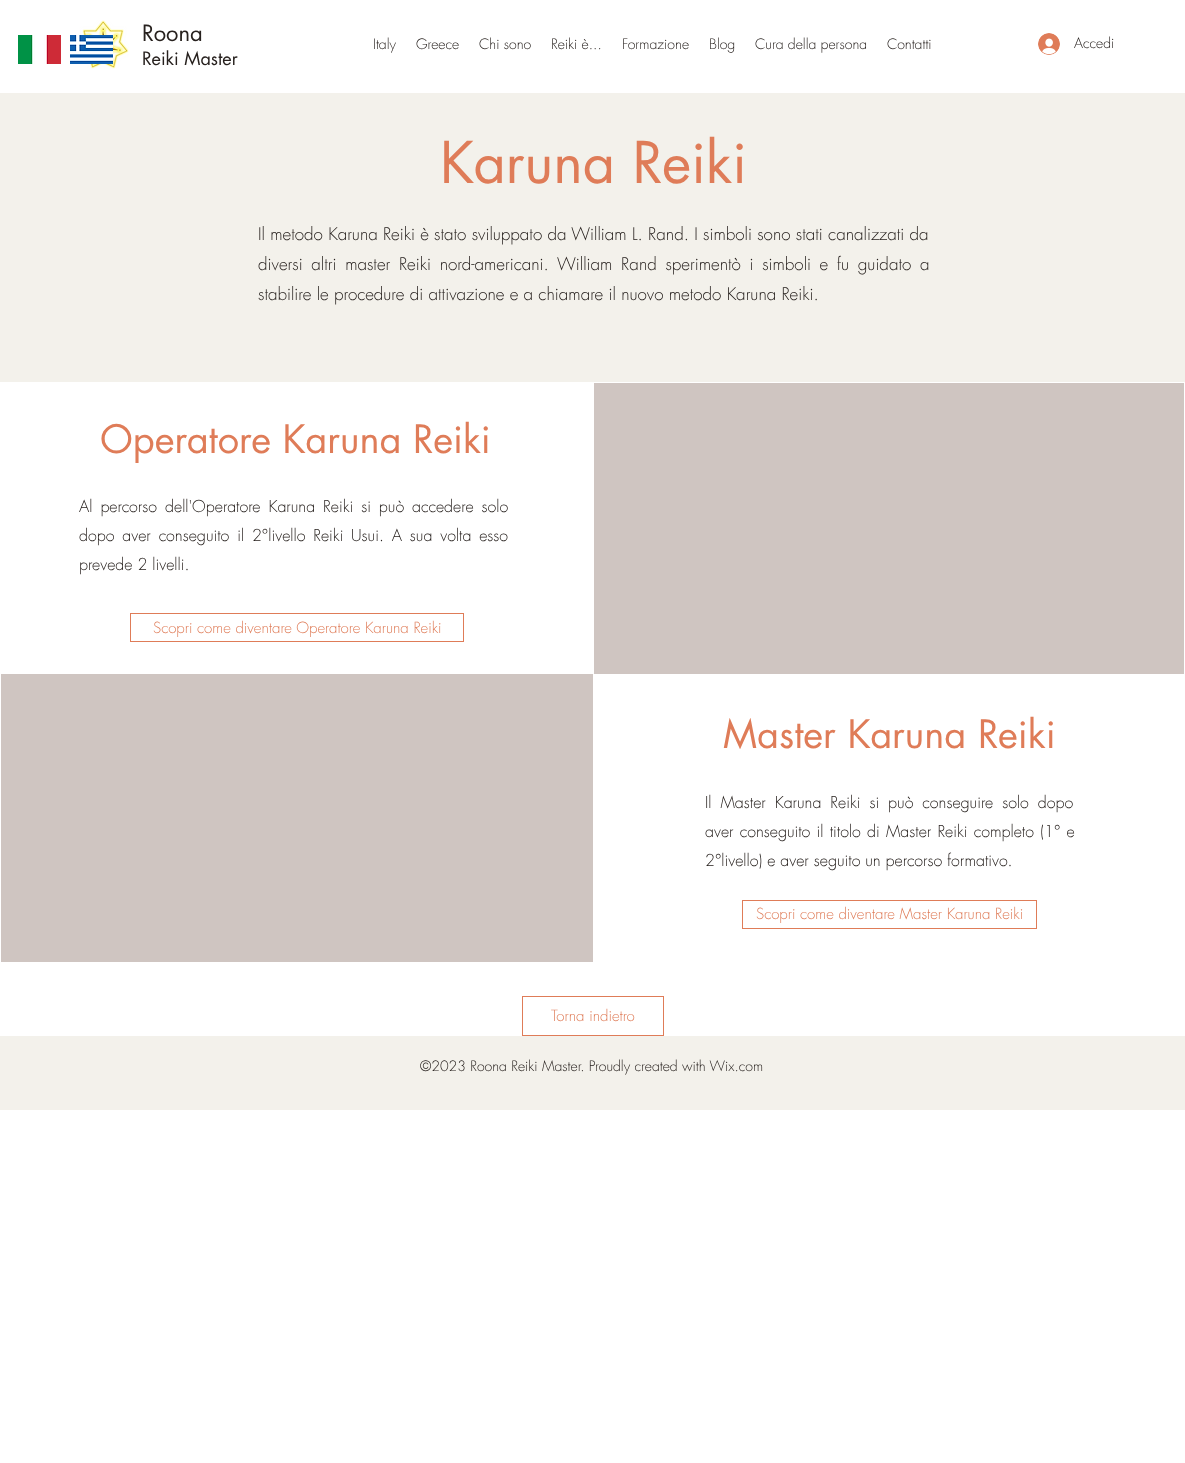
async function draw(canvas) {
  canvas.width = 1185;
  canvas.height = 1463;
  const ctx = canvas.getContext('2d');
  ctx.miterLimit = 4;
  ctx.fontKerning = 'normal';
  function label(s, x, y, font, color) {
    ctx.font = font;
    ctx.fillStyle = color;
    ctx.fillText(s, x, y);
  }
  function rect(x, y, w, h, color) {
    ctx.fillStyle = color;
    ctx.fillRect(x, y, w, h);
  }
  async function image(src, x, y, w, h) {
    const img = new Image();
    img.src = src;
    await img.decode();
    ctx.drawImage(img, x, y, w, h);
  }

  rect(0, 0, 1185, 1463, '#fff');
  await image('assets/img1.png', 77, 20, 52, 49);
  label('Roona', 142, 41, '22px futura', '#27211e');
  label('Reiki Master', 142, 65, '18px futura', '#27211e');
  await image('assets/img2.png', 18, 35, 43, 29);
  await image('assets/img3.png', 70, 35, 43, 29);
  label('Italy', 373, 49, '300 14px futura', '#27211e');
  label('Greece', 416, 49, '300 14px futura', '#27211e');
  label('Chi sono', 479, 49, '300 14px futura', '#27211e');
  label('Reiki è...', 551, 49, '300 14px futura', '#27211e');
  label('Formazione', 622, 49, '300 14px futura', '#27211e');
  label('Blog', 709, 49, '300 14px futura', '#27211e');
  label('Cura della persona', 755, 49, '300 14px futura', '#27211e');
  label('Contatti', 887, 49, '300 14px futura', '#27211e');
  await image('assets/img4.png', 1038, 33, 22, 22);
  label('Accedi', 1074, 48, '300 14px futura', '#27211e');
  rect(0, 93, 1185, 289, '#f3f1eb');
  label('Karuna Reiki', 440, 183, '56px futura', '#df7c58');
  label('Il metodo Karuna Reiki è stato sviluppato da William L. Rand. I simboli sono stati canalizzati da', 258, 240, '300 17px futura', '#27211e');
  ctx.wordSpacing = '3.4px';
  label('diversi altri master Reiki nord-americani. William Rand sperimentò i simboli e fu guidato a', 258, 270, '300 17px futura', '#27211e');
  ctx.wordSpacing = '0px';
  label('stabilire le procedure di attivazione e a chiamare il nuovo metodo Karuna Reiki.', 258, 300, '300 17px futura', '#27211e');
  label('Operatore Karuna Reiki', 100, 453, '38px futura', '#df7c58');
  ctx.wordSpacing = '3px';
  label('Al percorso dell\'Operatore Karuna Reiki si può accedere solo', 79, 512, '300 16px futura', '#27211e');
  ctx.wordSpacing = '2.9px';
  label('dopo aver conseguito il 2°livello Reiki Usui. A sua volta esso', 79, 541, '300 16px futura', '#27211e');
  ctx.wordSpacing = '0px';
  label('prevede 2 livelli.', 79, 570, '300 16px futura', '#27211e');
  ctx.strokeStyle = '#df7c58';
  ctx.strokeRect(130.5, 613.5, 333, 28);
  label('Scopri come diventare Operatore Karuna Reiki', 153, 633, '300 15px futura', '#df7c58');
  rect(594, 383, 590, 291, '#cfc5c1');
  rect(1, 674, 592, 288, '#cfc5c1');
  label('Master Karuna Reiki', 723, 748, '38px futura', '#df7c58');
  ctx.wordSpacing = '4px';
  label('Il Master Karuna Reiki si può conseguire solo dopo', 705, 808, '300 16px futura', '#27211e');
  ctx.wordSpacing = '1.25px';
  label('aver conseguito il titolo di Master Reiki completo (1° e', 705, 837, '300 16px futura', '#27211e');
  ctx.wordSpacing = '0px';
  label('2°livello) e aver seguito un percorso formativo.', 705, 866, '300 16px futura', '#27211e');
  ctx.strokeRect(742.5, 900.5, 294, 28);
  label('Scopri come diventare Master Karuna Reiki', 756, 919, '300 15px futura', '#df7c58');
  ctx.strokeRect(522.5, 996.5, 141, 39);
  label('Torna indietro', 551, 1021, '300 15px futura', '#df7c58');
  rect(0, 1036, 1185, 74, '#f3f1eb');
  label('©2023 Roona Reiki Master. Proudly created with Wix.com', 420, 1071, '300 14px futura', '#27211e');
}

draw(document.querySelector('canvas'));
